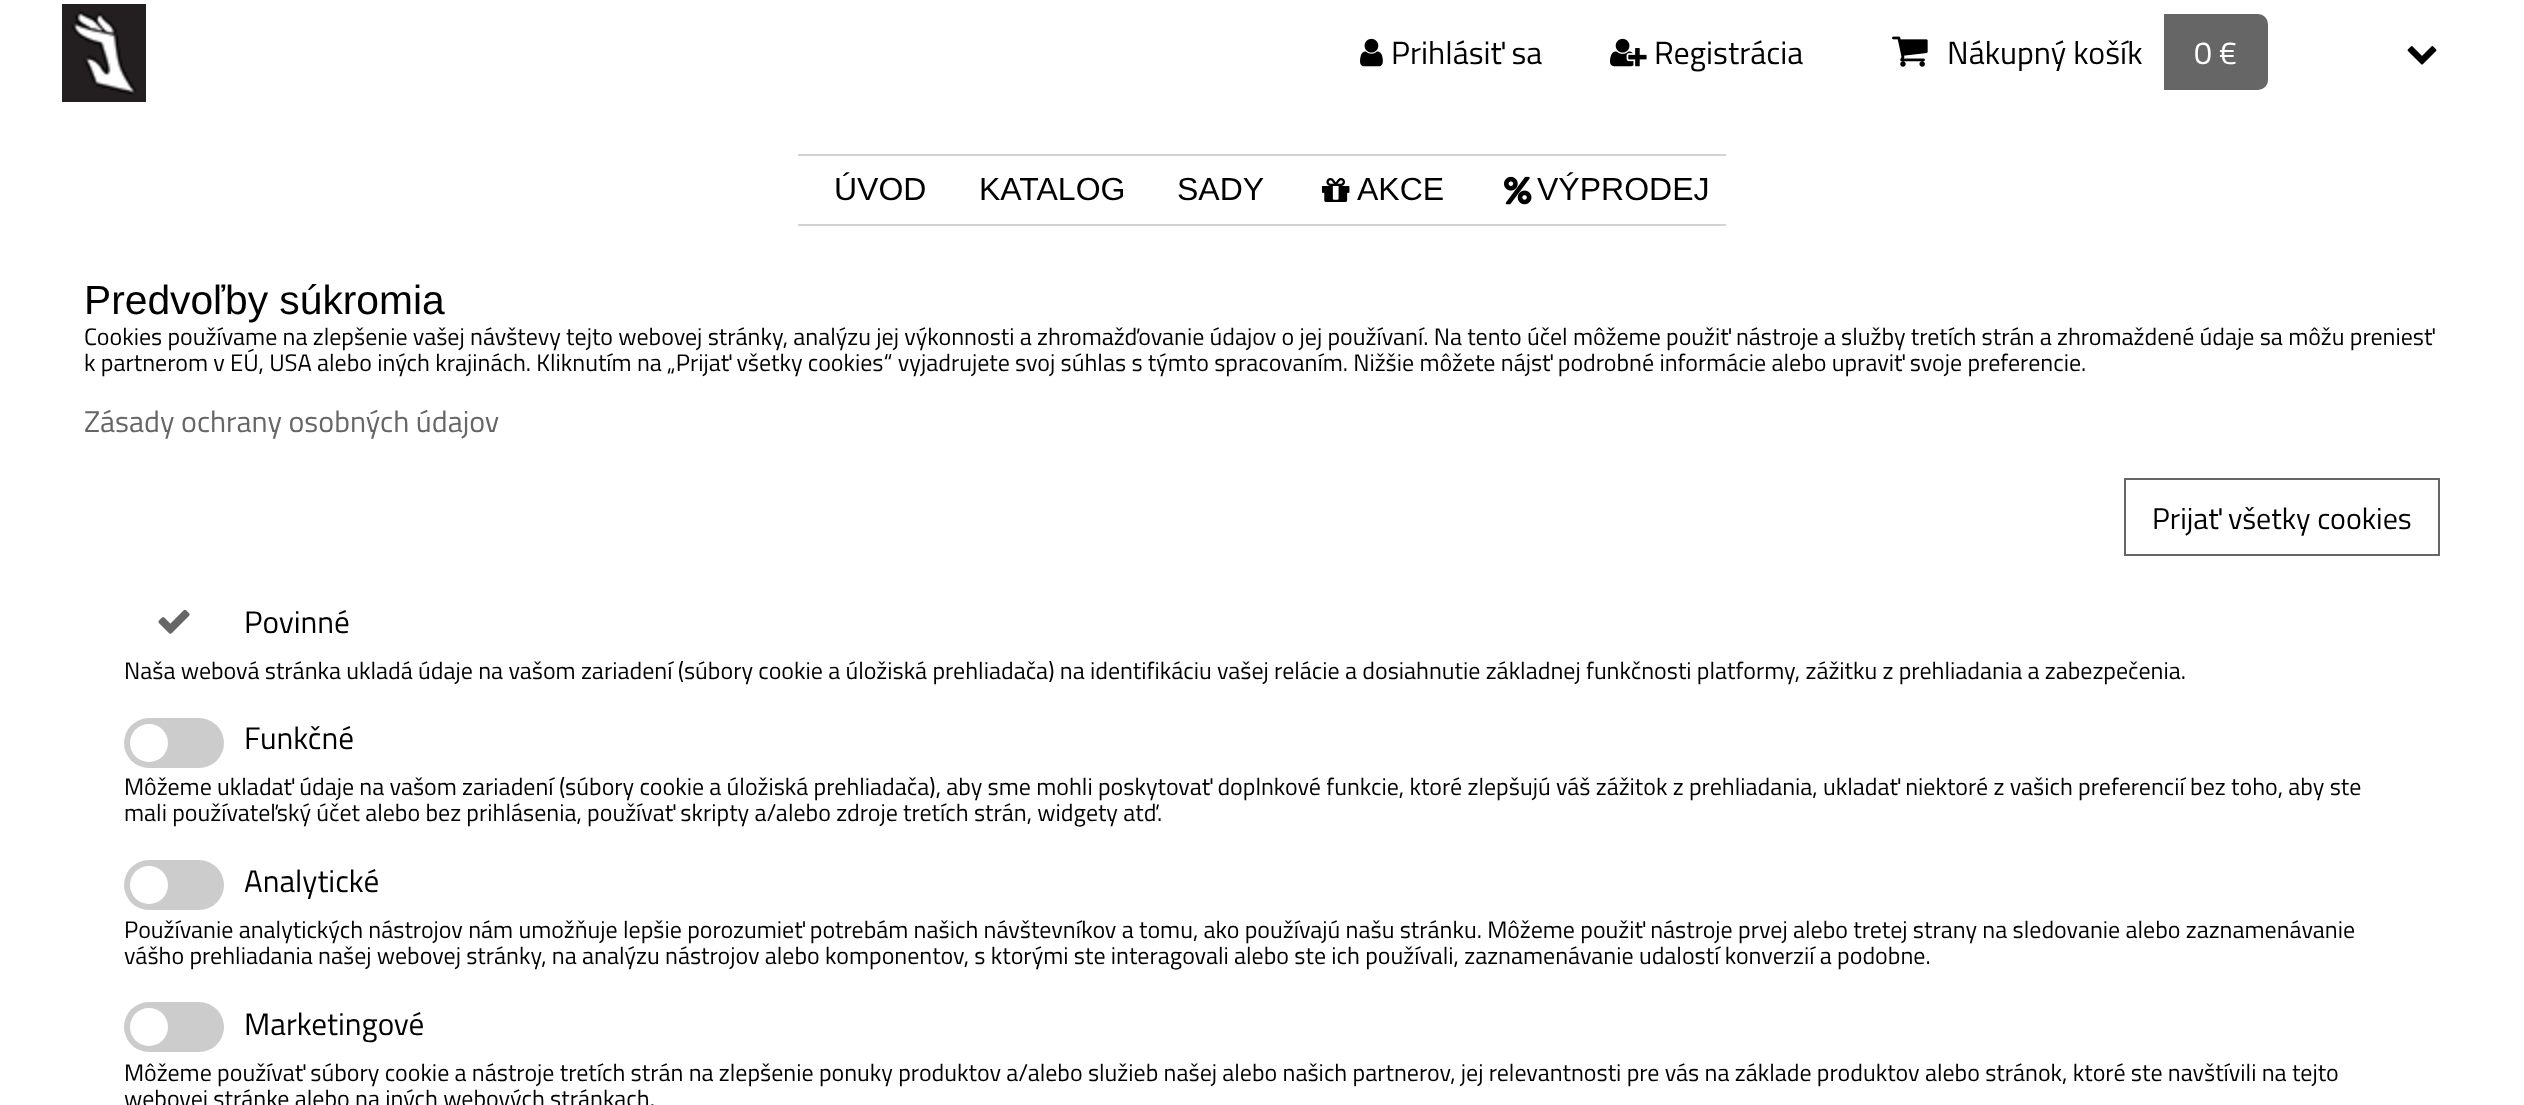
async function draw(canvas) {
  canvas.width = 2524;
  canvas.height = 1105;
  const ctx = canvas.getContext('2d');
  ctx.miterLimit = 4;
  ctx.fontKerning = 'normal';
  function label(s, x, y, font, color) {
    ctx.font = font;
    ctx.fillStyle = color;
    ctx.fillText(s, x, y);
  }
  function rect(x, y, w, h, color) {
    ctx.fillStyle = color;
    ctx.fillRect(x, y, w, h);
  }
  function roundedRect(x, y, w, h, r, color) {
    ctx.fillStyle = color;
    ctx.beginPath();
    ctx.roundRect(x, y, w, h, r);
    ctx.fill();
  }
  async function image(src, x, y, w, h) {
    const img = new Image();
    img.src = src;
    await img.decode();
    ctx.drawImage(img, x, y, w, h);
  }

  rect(0, 0, 2524, 1105, '#fff');
  await image('assets/img1.png', 62, 4, 84, 98);
  await image('assets/img2.png', 1360, 38, 23, 29);
  label('Prihlásiť sa', 1391, 64, '32px Titillium Web', '#000');
  await image('assets/img3.png', 1610, 38, 37, 29);
  label('Registrácia', 1654, 64, '32px Titillium Web', '#000');
  await image('assets/img4.png', 1892, 36, 36, 31);
  label('Nákupný košík', 1947, 64, '32px Titillium Web', '#000');
  ctx.fillStyle = '#666';
  ctx.beginPath();
  ctx.roundRect(2162, 14, 106, 76, [0, 10, 10, 0]);
  ctx.fill();
  rect(2162, 14, 2, 76, '#fff');
  label('0 €', 2194, 64, '32px Titillium Web', '#fff');
  await image('assets/img5.png', 2407, 46, 30, 19);
  rect(798, 154, 928, 2, '#d2d2d2');
  rect(798, 224, 928, 2, '#d2d2d2');
  label('ÚVOD', 834, 200, '32px Liberation Sans', '#000');
  label('KATALOG', 979, 200, '32px Liberation Sans', '#000');
  label('SADY', 1177, 200, '32px Liberation Sans', '#000');
  await image('assets/img6.png', 1322, 178, 28, 24);
  label('AKCE', 1357, 200, '32px Liberation Sans', '#000');
  await image('assets/img7.png', 1504, 176, 28, 29);
  label('VÝPRODEJ', 1537, 200, '32px Liberation Sans', '#000');
  label('Predvoľby súkromia', 84, 314, '40.75px Liberation Sans', '#000');
  label('Cookies používame na zlepšenie vašej návštevy tejto webovej stránky, analýzu jej výkonnosti a zhromažďovanie údajov o jej používaní. Na tento účel môžeme použiť nástroje a služby tretích strán a zhromaždené údaje sa môžu preniesť', 84, 345, '24px Titillium Web', '#000');
  label('k partnerom v EÚ, USA alebo iných krajinách. Kliknutím na „Prijať všetky cookies“ vyjadrujete svoj súhlas s týmto spracovaním. Nižšie môžete nájsť podrobné informácie alebo upraviť svoje preferencie.', 84, 371, '24px Titillium Web', '#000');
  label('Zásady ochrany osobných údajov', 84, 432, '30px Titillium Web', '#666');
  ctx.strokeStyle = '#666';
  ctx.lineWidth = 2;
  ctx.strokeRect(2125, 479, 314, 76);
  label('Prijať všetky cookies', 2152, 529, '30px Titillium Web', '#000');
  await image('assets/img8.png', 158, 609, 32, 25);
  label('Povinné', 244, 633, '31.25px Titillium Web', '#000');
  label('Naša webová stránka ukladá údaje na vašom zariadení (súbory cookie a úložiská prehliadača) na identifikáciu vašej relácie a dosiahnutie základnej funkčnosti platformy, zážitku z prehliadania a zabezpečenia.', 124, 679, '24px Titillium Web', '#000');
  roundedRect(124, 718, 100, 50, 25, '#ccc');
  ctx.fillStyle = '#fff';
  ctx.beginPath();
  ctx.arc(149, 743, 19, 0, 2 * Math.PI);
  ctx.fill();
  label('Funkčné', 244, 749, '31.25px Titillium Web', '#000');
  label('Môžeme ukladať údaje na vašom zariadení (súbory cookie a úložiská prehliadača), aby sme mohli poskytovať doplnkové funkcie, ktoré zlepšujú váš zážitok z prehliadania, ukladať niektoré z vašich preferencií bez toho, aby ste', 124, 795, '24px Titillium Web', '#000');
  label('mali používateľský účet alebo bez prihlásenia, používať skripty a/alebo zdroje tretích strán, widgety atď.', 124, 821, '24px Titillium Web', '#000');
  roundedRect(124, 860, 100, 50, 25, '#ccc');
  ctx.fillStyle = '#fff';
  ctx.beginPath();
  ctx.arc(149, 885, 19, 0, 2 * Math.PI);
  ctx.fill();
  label('Analytické', 244, 892, '31.25px Titillium Web', '#000');
  label('Používanie analytických nástrojov nám umožňuje lepšie porozumieť potrebám našich návštevníkov a tomu, ako používajú našu stránku. Môžeme použiť nástroje prvej alebo tretej strany na sledovanie alebo zaznamenávanie', 124, 938, '24px Titillium Web', '#000');
  label('vášho prehliadania našej webovej stránky, na analýzu nástrojov alebo komponentov, s ktorými ste interagovali alebo ste ich používali, zaznamenávanie udalostí konverzií a podobne.', 124, 964, '24px Titillium Web', '#000');
  roundedRect(124, 1002, 100, 50, 25, '#ccc');
  ctx.fillStyle = '#fff';
  ctx.beginPath();
  ctx.arc(149, 1027, 19, 0, 2 * Math.PI);
  ctx.fill();
  label('Marketingové', 244, 1035, '31.25px Titillium Web', '#000');
  label('Môžeme používať súbory cookie a nástroje tretích strán na zlepšenie ponuky produktov a/alebo služieb našej alebo našich partnerov, jej relevantnosti pre vás na základe produktov alebo stránok, ktoré ste navštívili na tejto', 124, 1081, '24px Titillium Web', '#000');
  label('webovej stránke alebo na iných webových stránkach.', 124, 1107, '24px Titillium Web', '#000');
}

draw(document.querySelector('canvas'));
